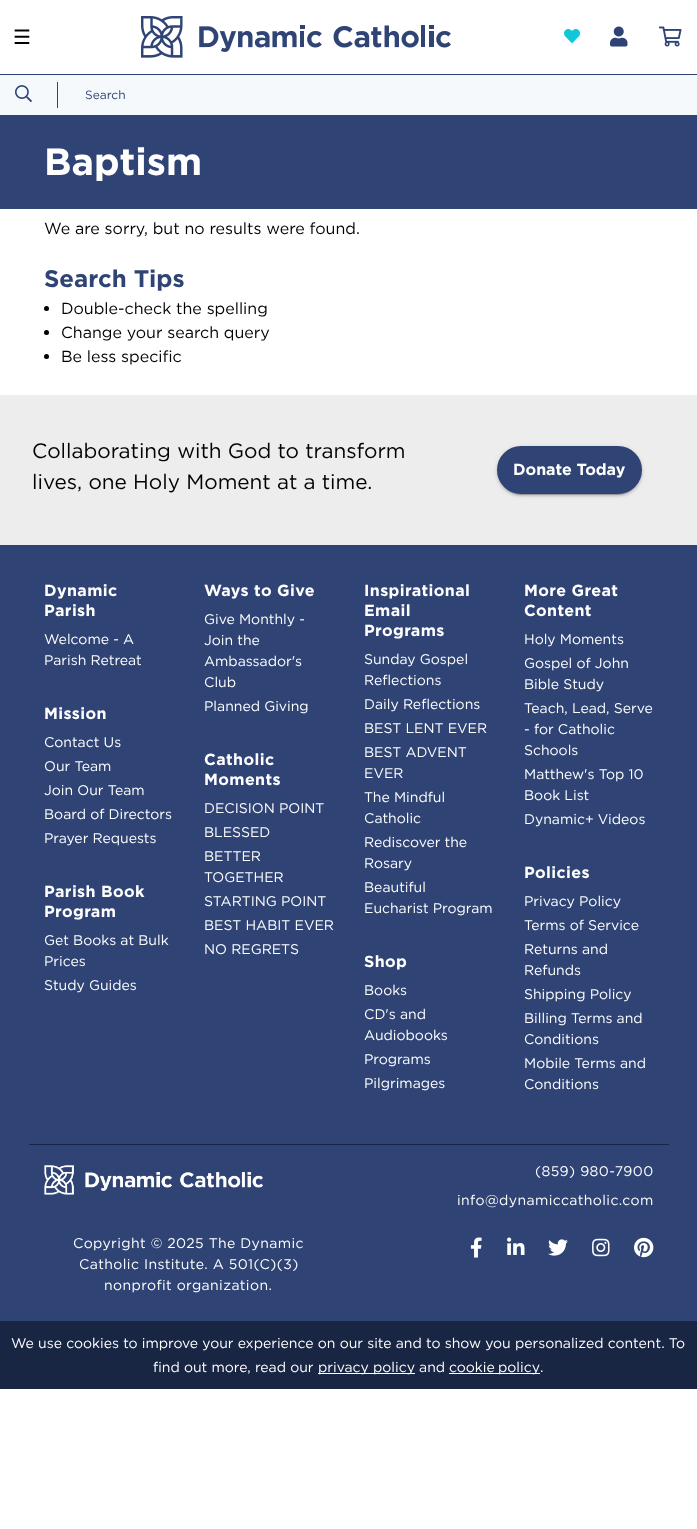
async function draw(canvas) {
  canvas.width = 697;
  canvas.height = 1529;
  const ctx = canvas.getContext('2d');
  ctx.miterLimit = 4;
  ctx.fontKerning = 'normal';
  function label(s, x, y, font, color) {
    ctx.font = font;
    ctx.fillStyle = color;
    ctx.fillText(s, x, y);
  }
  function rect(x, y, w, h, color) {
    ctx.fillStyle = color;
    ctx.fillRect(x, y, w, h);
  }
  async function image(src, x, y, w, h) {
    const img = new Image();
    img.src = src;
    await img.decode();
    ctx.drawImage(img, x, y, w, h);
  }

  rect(0, 0, 697, 1529, '#fff');
  label('☰', 13, 44, '20px DejaVu Sans', '#000');
  await image('assets/img1.png', 141, 16, 310, 42);
  await image('assets/img2.png', 564, 29, 16, 14);
  await image('assets/img3.png', 610, 26, 18, 21);
  await image('assets/img4.png', 659, 26, 23, 21);
  rect(0, 75, 697, 40, '#f6f9fc');
  rect(0, 74, 697, 1, '#2f4475');
  rect(57, 82, 1, 26, '#2f4475');
  await image('assets/img5.png', 15, 85, 17, 18);
  label('Search', 85, 99, '300 12px "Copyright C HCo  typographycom"', '#2f4475');
  rect(0, 115, 697, 94, '#2f4475');
  label('Baptism', 44, 175, '38px "Copyright C HCo  typographycom"', '#fff');
  label('We are sorry, but no results were found.', 44, 234, '300 16px "Copyright C HCo  typographycom"', '#000');
  label('Search Tips', 44, 287, '24px "Copyright C HCo  typographycom"', '#2f4475');
  ctx.fillStyle = '#000';
  ctx.beginPath();
  ctx.arc(46.5, 308.5, 2.5, 0, 2 * Math.PI);
  ctx.fill();
  label('Double-check the spelling', 61, 314, '300 16px "Copyright C HCo  typographycom"', '#000');
  ctx.beginPath();
  ctx.arc(46.5, 332.5, 2.5, 0, 2 * Math.PI);
  ctx.fill();
  label('Change your search query', 61, 338, '300 16px "Copyright C HCo  typographycom"', '#000');
  ctx.beginPath();
  ctx.arc(46.5, 356.5, 2.5, 0, 2 * Math.PI);
  ctx.fill();
  label('Be less specific', 61, 362, '300 16px "Copyright C HCo  typographycom"', '#000');
  rect(0, 395, 697, 150, '#ededed');
  label('Collaborating with God to transform', 32, 458, '300 20.75px "Copyright C HCo  typographycom"', '#000');
  label('lives, one Holy Moment at a time.', 32, 489, '300 20.75px "Copyright C HCo  typographycom"', '#000');
  ctx.fillStyle = '#0000001f';
  ctx.filter = 'blur(2.5px)';
  ctx.beginPath();
  ctx.roundRect(497, 447, 145, 48, 24);
  ctx.fill();
  ctx.filter = 'none';
  ctx.fillStyle = '#00000024';
  ctx.filter = 'blur(1px)';
  ctx.beginPath();
  ctx.roundRect(497, 448, 145, 48, 24);
  ctx.fill();
  ctx.filter = 'none';
  ctx.fillStyle = '#00000033';
  ctx.filter = 'blur(0.5px)';
  ctx.beginPath();
  ctx.roundRect(499, 451, 141, 44, 22);
  ctx.fill();
  ctx.filter = 'none';
  ctx.fillStyle = '#2f4475';
  ctx.beginPath();
  ctx.roundRect(498, 447, 143, 46, 23);
  ctx.fill();
  ctx.strokeStyle = '#2f4475';
  ctx.lineWidth = 2;
  ctx.stroke();
  label('Donate Today', 513, 475, '16px "Copyright C HCo  typographycom"', '#fff');
  rect(0, 545, 697, 776, '#2f4475');
  ctx.letterSpacing = '0.4px';
  label('Dynamic', 44, 596, '16px "Copyright C HCo  typographycom"', '#fff');
  label('Parish', 44, 616, '16px "Copyright C HCo  typographycom"', '#fff');
  ctx.letterSpacing = '0px';
  label('Welcome - A', 44, 644, '300 14px "Copyright C HCo  typographycom"', '#fff');
  label('Parish Retreat', 44, 665, '300 14px "Copyright C HCo  typographycom"', '#fff');
  ctx.letterSpacing = '0.4px';
  label('Mission', 44, 719, '16px "Copyright C HCo  typographycom"', '#fff');
  ctx.letterSpacing = '0px';
  label('Contact Us', 44, 747, '300 14px "Copyright C HCo  typographycom"', '#fff');
  label('Our Team', 44, 771, '300 14px "Copyright C HCo  typographycom"', '#fff');
  label('Join Our Team', 44, 795, '300 14px "Copyright C HCo  typographycom"', '#fff');
  label('Board of Directors', 44, 819, '300 14px "Copyright C HCo  typographycom"', '#fff');
  label('Prayer Requests', 44, 843, '300 14px "Copyright C HCo  typographycom"', '#fff');
  ctx.letterSpacing = '0.4px';
  label('Parish Book', 44, 897, '16px "Copyright C HCo  typographycom"', '#fff');
  label('Program', 44, 917, '16px "Copyright C HCo  typographycom"', '#fff');
  ctx.letterSpacing = '0px';
  label('Get Books at Bulk', 44, 945, '300 14px "Copyright C HCo  typographycom"', '#fff');
  label('Prices', 44, 966, '300 14px "Copyright C HCo  typographycom"', '#fff');
  label('Study Guides', 44, 990, '300 14px "Copyright C HCo  typographycom"', '#fff');
  ctx.letterSpacing = '0.4px';
  label('Ways to Give', 204, 596, '16px "Copyright C HCo  typographycom"', '#fff');
  ctx.letterSpacing = '0px';
  label('Give Monthly -', 204, 624, '300 14px "Copyright C HCo  typographycom"', '#fff');
  label('Join the', 204, 645, '300 14px "Copyright C HCo  typographycom"', '#fff');
  label('Ambassador\'s', 204, 666, '300 14px "Copyright C HCo  typographycom"', '#fff');
  label('Club', 204, 687, '300 14px "Copyright C HCo  typographycom"', '#fff');
  label('Planned Giving', 204, 711, '300 14px "Copyright C HCo  typographycom"', '#fff');
  ctx.letterSpacing = '0.4px';
  label('Catholic', 204, 765, '16px "Copyright C HCo  typographycom"', '#fff');
  label('Moments', 204, 785, '16px "Copyright C HCo  typographycom"', '#fff');
  ctx.letterSpacing = '0px';
  label('DECISION POINT', 204, 813, '300 14px "Copyright C HCo  typographycom"', '#fff');
  label('BLESSED', 204, 837, '300 14px "Copyright C HCo  typographycom"', '#fff');
  label('BETTER', 204, 861, '300 14px "Copyright C HCo  typographycom"', '#fff');
  label('TOGETHER', 204, 882, '300 14px "Copyright C HCo  typographycom"', '#fff');
  label('STARTING POINT', 204, 906, '300 14px "Copyright C HCo  typographycom"', '#fff');
  label('BEST HABIT EVER', 204, 930, '300 14px "Copyright C HCo  typographycom"', '#fff');
  label('NO REGRETS', 204, 954, '300 14px "Copyright C HCo  typographycom"', '#fff');
  ctx.letterSpacing = '0.4px';
  label('Inspirational', 364, 596, '16px "Copyright C HCo  typographycom"', '#fff');
  label('Email', 364, 616, '16px "Copyright C HCo  typographycom"', '#fff');
  label('Programs', 364, 636, '16px "Copyright C HCo  typographycom"', '#fff');
  ctx.letterSpacing = '0px';
  label('Sunday Gospel', 364, 664, '300 14px "Copyright C HCo  typographycom"', '#fff');
  label('Reflections', 364, 685, '300 14px "Copyright C HCo  typographycom"', '#fff');
  label('Daily Reflections', 364, 709, '300 14px "Copyright C HCo  typographycom"', '#fff');
  label('BEST LENT EVER', 364, 733, '300 14px "Copyright C HCo  typographycom"', '#fff');
  label('BEST ADVENT', 364, 757, '300 14px "Copyright C HCo  typographycom"', '#fff');
  label('EVER', 364, 778, '300 14px "Copyright C HCo  typographycom"', '#fff');
  label('The Mindful', 364, 802, '300 14px "Copyright C HCo  typographycom"', '#fff');
  label('Catholic', 364, 823, '300 14px "Copyright C HCo  typographycom"', '#fff');
  label('Rediscover the', 364, 847, '300 14px "Copyright C HCo  typographycom"', '#fff');
  label('Rosary', 364, 868, '300 14px "Copyright C HCo  typographycom"', '#fff');
  label('Beautiful', 364, 892, '300 14px "Copyright C HCo  typographycom"', '#fff');
  label('Eucharist Program', 364, 913, '300 14px "Copyright C HCo  typographycom"', '#fff');
  ctx.letterSpacing = '0.4px';
  label('Shop', 364, 967, '16px "Copyright C HCo  typographycom"', '#fff');
  ctx.letterSpacing = '0px';
  label('Books', 364, 995, '300 14px "Copyright C HCo  typographycom"', '#fff');
  label('CD\'s and', 364, 1019, '300 14px "Copyright C HCo  typographycom"', '#fff');
  label('Audiobooks', 364, 1040, '300 14px "Copyright C HCo  typographycom"', '#fff');
  label('Programs', 364, 1064, '300 14px "Copyright C HCo  typographycom"', '#fff');
  label('Pilgrimages', 364, 1088, '300 14px "Copyright C HCo  typographycom"', '#fff');
  ctx.letterSpacing = '0.4px';
  label('More Great', 524, 596, '16px "Copyright C HCo  typographycom"', '#fff');
  label('Content', 524, 616, '16px "Copyright C HCo  typographycom"', '#fff');
  ctx.letterSpacing = '0px';
  label('Holy Moments', 524, 644, '300 14px "Copyright C HCo  typographycom"', '#fff');
  label('Gospel of John', 524, 668, '300 14px "Copyright C HCo  typographycom"', '#fff');
  label('Bible Study', 524, 689, '300 14px "Copyright C HCo  typographycom"', '#fff');
  label('Teach, Lead, Serve', 524, 713, '300 14px "Copyright C HCo  typographycom"', '#fff');
  label('- for Catholic', 524, 734, '300 14px "Copyright C HCo  typographycom"', '#fff');
  label('Schools', 524, 755, '300 14px "Copyright C HCo  typographycom"', '#fff');
  label('Matthew\'s Top 10', 524, 779, '300 14px "Copyright C HCo  typographycom"', '#fff');
  label('Book List', 524, 800, '300 14px "Copyright C HCo  typographycom"', '#fff');
  label('Dynamic+ Videos', 524, 824, '300 14px "Copyright C HCo  typographycom"', '#fff');
  ctx.letterSpacing = '0.4px';
  label('Policies', 524, 878, '16px "Copyright C HCo  typographycom"', '#fff');
  ctx.letterSpacing = '0px';
  label('Privacy Policy', 524, 906, '300 14px "Copyright C HCo  typographycom"', '#fff');
  label('Terms of Service', 524, 930, '300 14px "Copyright C HCo  typographycom"', '#fff');
  label('Returns and', 524, 954, '300 14px "Copyright C HCo  typographycom"', '#fff');
  label('Refunds', 524, 975, '300 14px "Copyright C HCo  typographycom"', '#fff');
  label('Shipping Policy', 524, 999, '300 14px "Copyright C HCo  typographycom"', '#fff');
  label('Billing Terms and', 524, 1023, '300 14px "Copyright C HCo  typographycom"', '#fff');
  label('Conditions', 524, 1044, '300 14px "Copyright C HCo  typographycom"', '#fff');
  label('Mobile Terms and', 524, 1068, '300 14px "Copyright C HCo  typographycom"', '#fff');
  label('Conditions', 524, 1089, '300 14px "Copyright C HCo  typographycom"', '#fff');
  rect(29, 1144, 640, 1, '#182543');
  await image('assets/img6.png', 44, 1165, 219, 30);
  ctx.letterSpacing = '0.4px';
  label('(859) 980-7900', 535, 1176, '300 14px "Copyright C HCo  typographycom"', '#fff');
  label('info@dynamiccatholic.com', 457, 1205, '300 14px "Copyright C HCo  typographycom"', '#fff');
  label('Copyright © 2025 The Dynamic', 73, 1248, '300 14px "Copyright C HCo  typographycom"', '#fff');
  label('Catholic Institute. A 501(C)(3)', 79, 1269, '300 14px "Copyright C HCo  typographycom"', '#fff');
  label('nonprofit organization.', 104, 1290, '300 14px "Copyright C HCo  typographycom"', '#fff');
  await image('assets/img7.png', 470, 1237, 12, 21);
  await image('assets/img8.png', 507, 1237, 18, 18);
  await image('assets/img9.png', 548, 1239, 20, 17);
  await image('assets/img10.png', 592, 1238, 18, 19);
  await image('assets/img11.png', 634, 1237, 20, 21);
  rect(0, 1321, 697, 68, '#182543');
  ctx.letterSpacing = '0px';
  label('We use cookies to improve your experience on our site and to show you personalized content. To', 11, 1348, '300 14px "Copyright C HCo  typographycom"', '#fff');
  label('find out more, read our', 153, 1372, '300 14px "Copyright C HCo  typographycom"', '#fff');
  rect(318, 1373, 97, 1, '#fff');
  label('privacy policy and', 318, 1372, '300 14px "Copyright C HCo  typographycom"', '#fff');
  rect(449, 1373, 91, 1, '#fff');
  ctx.wordSpacing = '-1px';
  label('cookie policy', 449, 1372, '300 14px "Copyright C HCo  typographycom"', '#fff');
  ctx.wordSpacing = '0px';
  label('.', 540, 1372, '300 14px "Copyright C HCo  typographycom"', '#fff');
}

draw(document.querySelector('canvas'));
